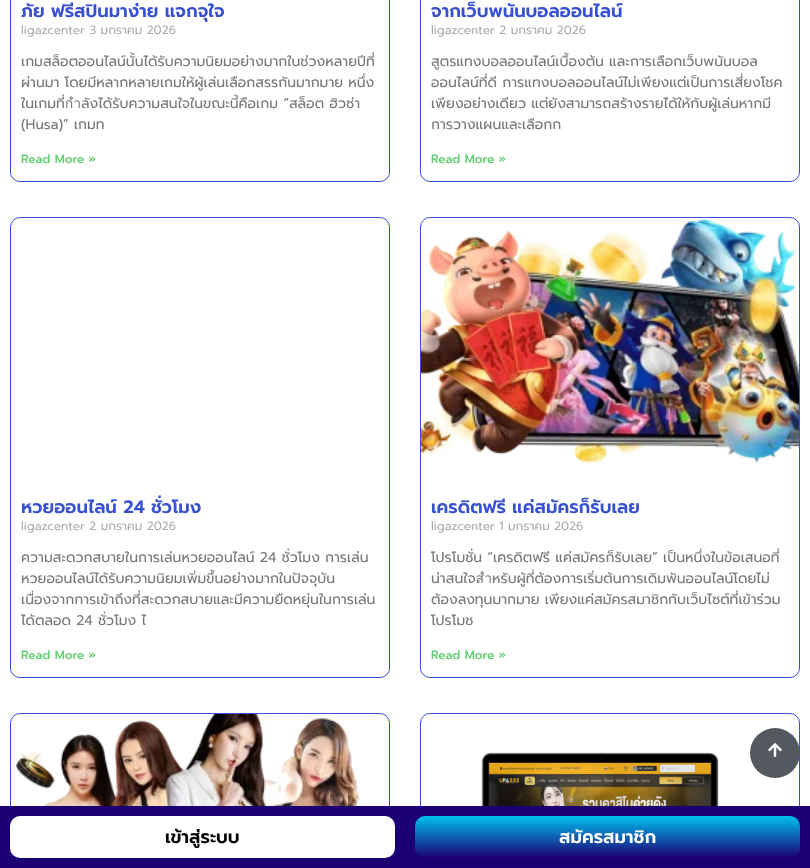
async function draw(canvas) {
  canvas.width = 810;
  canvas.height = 868;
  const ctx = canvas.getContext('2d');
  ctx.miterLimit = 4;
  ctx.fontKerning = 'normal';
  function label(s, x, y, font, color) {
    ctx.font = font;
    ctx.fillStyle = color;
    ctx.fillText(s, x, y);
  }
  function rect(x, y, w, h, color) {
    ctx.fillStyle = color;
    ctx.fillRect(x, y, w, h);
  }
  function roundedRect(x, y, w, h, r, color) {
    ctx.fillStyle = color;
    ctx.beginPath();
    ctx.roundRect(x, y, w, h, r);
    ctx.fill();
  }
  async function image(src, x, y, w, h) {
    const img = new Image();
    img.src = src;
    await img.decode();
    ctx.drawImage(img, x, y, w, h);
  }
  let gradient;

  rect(0, 0, 810, 868, '#fff');
  ctx.beginPath();
  ctx.roundRect(10.5, -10.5, 379, 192, 9.5);
  ctx.strokeStyle = '#3851d2';
  ctx.stroke();
  label('ภัย ฟรีสปินมาง่าย แจกจุใจ', 21, 17, '600 18px Prompt', '#3851d2');
  label('ligazcenter 3 มกราคม 2026', 21, 34, '12px Prompt', '#adadad');
  label('เกมสล็อตออนไลน์นั้นได้รับความนิยมอย่างมากในช่วงหลายปีที่', 21, 66, '14px Prompt', '#777');
  label('ผ่านมา โดยมีหลากหลายเกมให้ผู้เล่นเลือกสรรกันมากมาย หนึ่ง', 21, 87, '14px Prompt', '#777');
  label('ในเกมที่กำลังได้รับความสนใจในขณะนี้คือเกม “สล็อต ฮิวซ่า', 21, 108, '14px Prompt', '#777');
  label('(Husa)” เกมท', 21, 129, '14px Prompt', '#777');
  label('Read More »', 21, 163, '500 12px Prompt', '#61ce70');
  ctx.beginPath();
  ctx.roundRect(420.5, -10.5, 379, 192, 9.5);
  ctx.stroke();
  label('จากเว็บพนันบอลออนไลน์', 431, 17, '600 18px Prompt', '#3851d2');
  label('ligazcenter 2 มกราคม 2026', 431, 34, '12px Prompt', '#adadad');
  label('สูตรแทงบอลออนไลน์เบื้องต้น และการเลือกเว็บพนันบอล', 431, 66, '14px Prompt', '#777');
  label('ออนไลน์ที่ดี การแทงบอลออนไลน์ไม่เพียงแต่เป็นการเสี่ยงโชค', 431, 87, '14px Prompt', '#777');
  label('เพียงอย่างเดียว แต่ยังสามารถสร้างรายได้ให้กับผู้เล่นหากมี', 431, 108, '14px Prompt', '#777');
  label('การวางแผนและเลือกก', 431, 129, '14px Prompt', '#777');
  label('Read More »', 431, 163, '500 12px Prompt', '#61ce70');
  ctx.beginPath();
  ctx.roundRect(10.5, 217.5, 379, 460, 9.5);
  ctx.stroke();
  label('หวยออนไลน์ 24 ชั่วโมง', 21, 513, '600 18px Prompt', '#3851d2');
  label('ligazcenter 2 มกราคม 2026', 21, 530, '12px Prompt', '#adadad');
  label('ความสะดวกสบายในการเล่นหวยออนไลน์ 24 ชั่วโมง การเล่น', 21, 562, '14px Prompt', '#777');
  label('หวยออนไลน์ได้รับความนิยมเพิ่มขึ้นอย่างมากในปัจจุบัน', 21, 583, '14px Prompt', '#777');
  label('เนื่องจากการเข้าถึงที่สะดวกสบายและมีความยืดหยุ่นในการเล่น', 21, 604, '14px Prompt', '#777');
  label('ได้ตลอด 24 ชั่วโมง ไ', 21, 625, '14px Prompt', '#777');
  label('Read More »', 21, 659, '500 12px Prompt', '#61ce70');
  ctx.beginPath();
  ctx.roundRect(420.5, 217.5, 379, 460, 9.5);
  ctx.stroke();
  await image('assets/img1.png', 421, 219, 378, 245);
  label('เครดิตฟรี แค่สมัครก็รับเลย', 431, 513, '600 18px Prompt', '#3851d2');
  label('ligazcenter 1 มกราคม 2026', 431, 530, '12px Prompt', '#adadad');
  label('โปรโมชั่น “เครดิตฟรี แค่สมัครก็รับเลย” เป็นหนึ่งในข้อเสนอที่', 431, 562, '14px Prompt', '#777');
  label('น่าสนใจสำหรับผู้ที่ต้องการเริ่มต้นการเดิมพันออนไลน์โดยไม่', 431, 583, '14px Prompt', '#777');
  label('ต้องลงทุนมากมาย เพียงแค่สมัครสมาชิกกับเว็บไซต์ที่เข้าร่วม', 431, 604, '14px Prompt', '#777');
  label('โปรโมช', 431, 625, '14px Prompt', '#777');
  label('Read More »', 431, 659, '500 12px Prompt', '#61ce70');
  ctx.beginPath();
  ctx.roundRect(10.5, 713.5, 379, 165, 9.5);
  ctx.stroke();
  await image('assets/img2.png', 15, 714, 346, 92);
  ctx.beginPath();
  ctx.roundRect(420.5, 713.5, 379, 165, 9.5);
  ctx.stroke();
  await image('assets/img3.png', 481, 752, 238, 54);
  ctx.fillStyle = '#54595f';
  ctx.beginPath();
  ctx.arc(775, 753, 25, 0, 2 * Math.PI);
  ctx.fill();
  await image('assets/img4.png', 768, 743, 14, 14);
  rect(0, 806, 810, 62, '#1c0073');
  roundedRect(10, 816, 385, 42, 10, '#fff');
  label('เข้าสู่ระบบ', 165, 843, '600 18px Prompt', '#000');
  gradient = ctx.createLinearGradient(608, 816, 608, 858);
  gradient.addColorStop(0, '#00c1f0');
  gradient.addColorStop(1, '#1c0073');
  ctx.fillStyle = gradient;
  ctx.beginPath();
  ctx.roundRect(415, 816, 385, 42, 10);
  ctx.fill();
  label('สมัครสมาชิก', 559, 843, '600 18px Prompt', '#fff');
}

draw(document.querySelector('canvas'));
